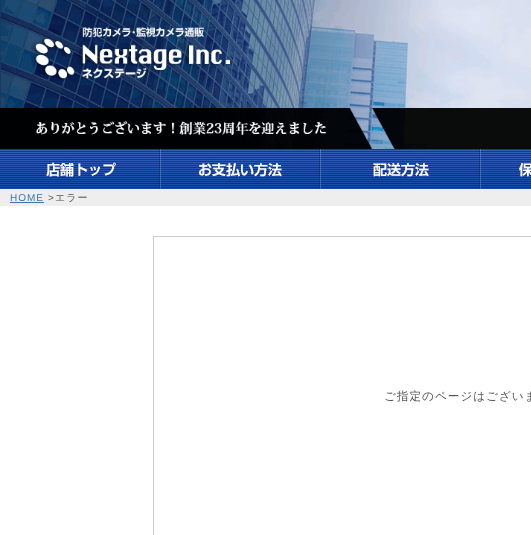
async function draw(canvas) {
  canvas.width = 531;
  canvas.height = 535;
  const ctx = canvas.getContext('2d');
  ctx.miterLimit = 4;
  ctx.fontKerning = 'normal';
  function label(s, x, y, font, color) {
    ctx.font = font;
    ctx.fillStyle = color;
    ctx.fillText(s, x, y);
  }
  function rect(x, y, w, h, color) {
    ctx.fillStyle = color;
    ctx.fillRect(x, y, w, h);
  }
  async function image(src, x, y, w, h) {
    const img = new Image();
    img.src = src;
    await img.decode();
    ctx.drawImage(img, x, y, w, h);
  }

  rect(0, 0, 531, 535, '#fff');
  await image('assets/img1.png', 0, 0, 531, 149);
  await image('assets/img2.png', 0, 149, 161, 40);
  await image('assets/img3.png', 161, 149, 160, 40);
  await image('assets/img4.png', 321, 149, 160, 40);
  await image('assets/img5.png', 481, 149, 50, 40);
  rect(0, 189, 531, 17, '#eee');
  ctx.letterSpacing = '1px';
  label('HOME', 10, 201, '10px Liberation Sans', '#3a75af');
  rect(10, 202, 34, 1, '#3a75af');
  label('>', 48, 201, '10px Liberation Sans', '#555');
  label('エラー', 55, 201, '500 10px WenQuanYi Zen Hei', '#555');
  ctx.strokeStyle = '#ccc';
  ctx.strokeRect(153.5, 236.5, 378, 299);
  label('ご指定のページはございま', 384, 400, '500 11.6px WenQuanYi Zen Hei', '#555');
}

draw(document.querySelector('canvas'));
